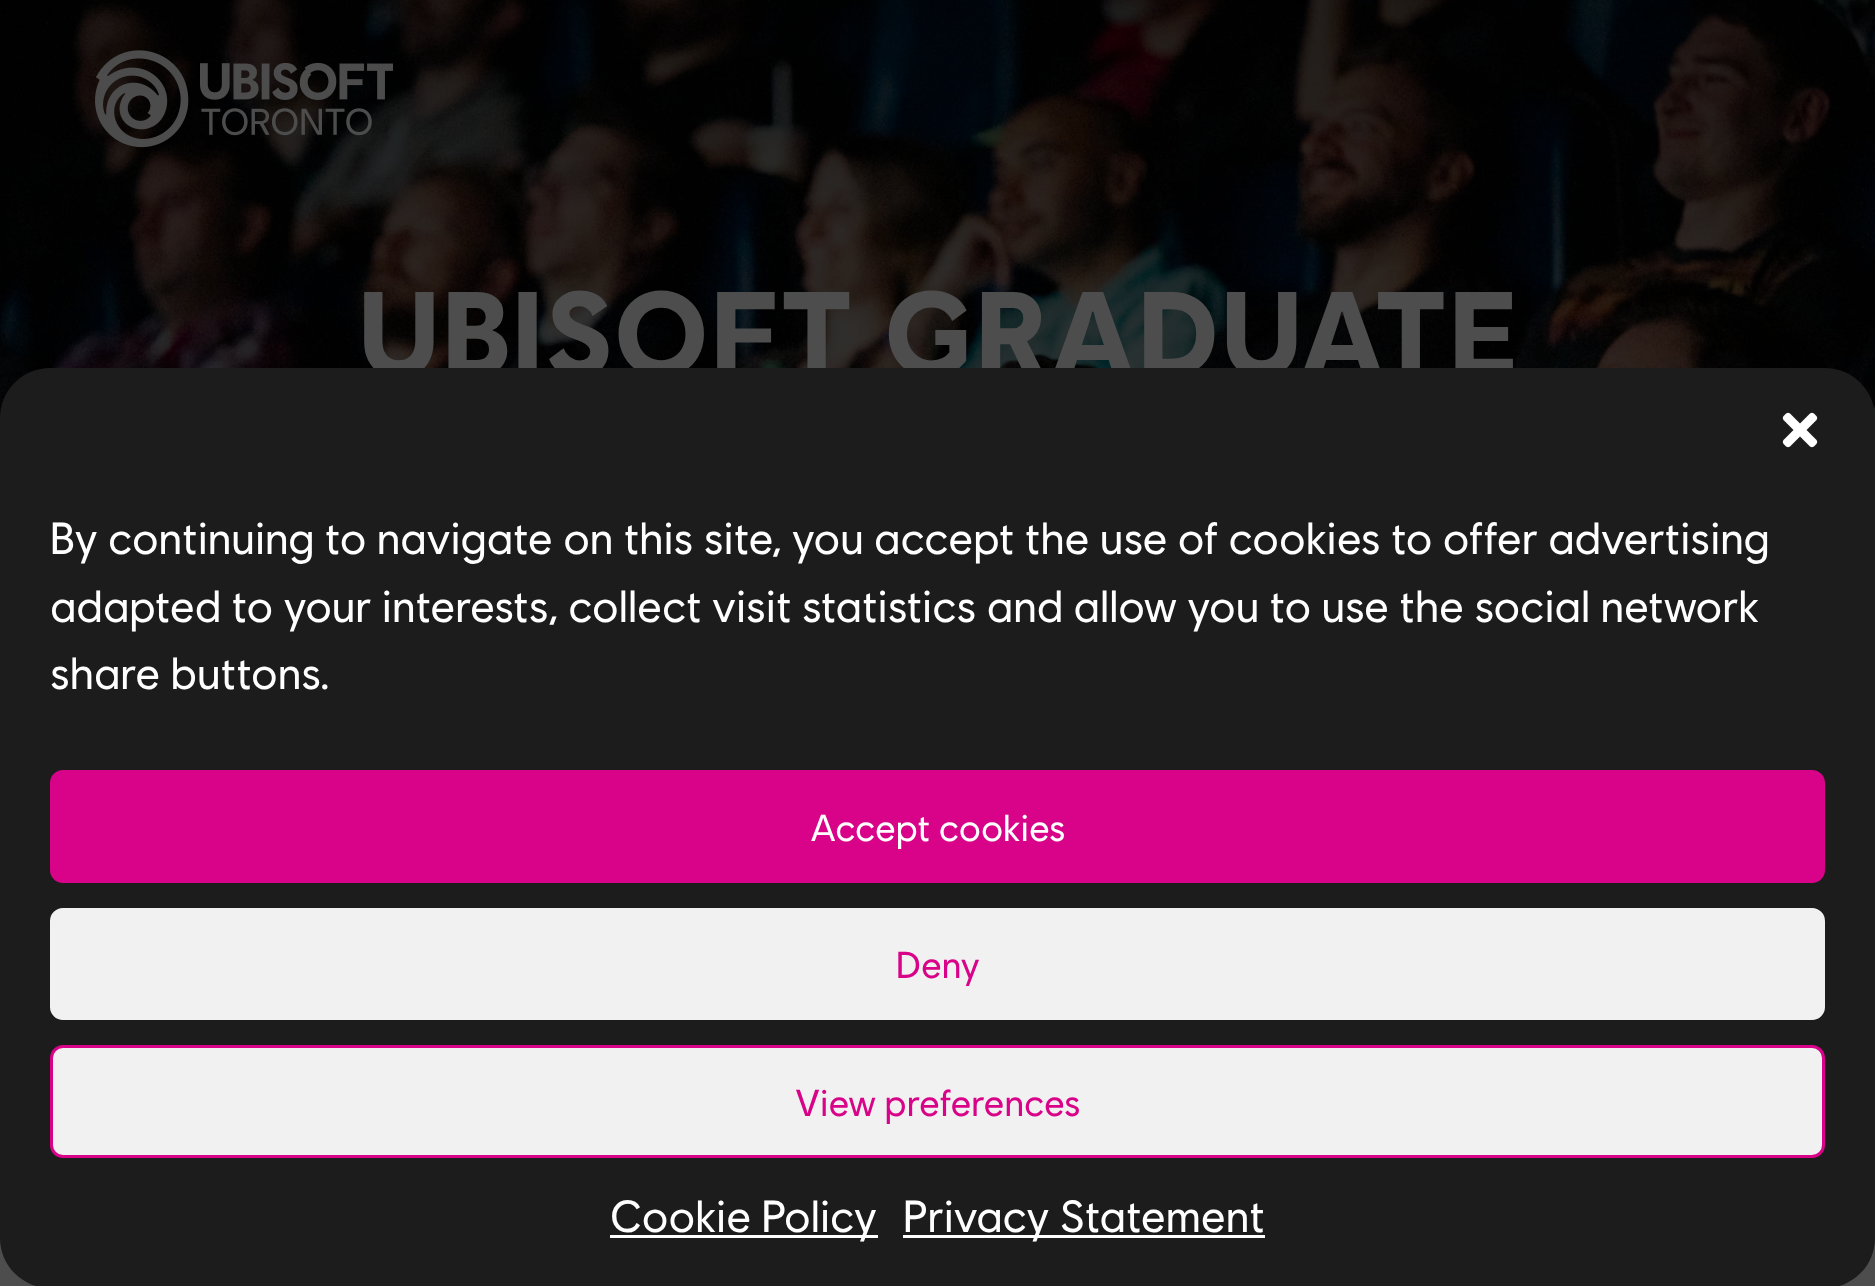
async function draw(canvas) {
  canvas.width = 1875;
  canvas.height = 1286;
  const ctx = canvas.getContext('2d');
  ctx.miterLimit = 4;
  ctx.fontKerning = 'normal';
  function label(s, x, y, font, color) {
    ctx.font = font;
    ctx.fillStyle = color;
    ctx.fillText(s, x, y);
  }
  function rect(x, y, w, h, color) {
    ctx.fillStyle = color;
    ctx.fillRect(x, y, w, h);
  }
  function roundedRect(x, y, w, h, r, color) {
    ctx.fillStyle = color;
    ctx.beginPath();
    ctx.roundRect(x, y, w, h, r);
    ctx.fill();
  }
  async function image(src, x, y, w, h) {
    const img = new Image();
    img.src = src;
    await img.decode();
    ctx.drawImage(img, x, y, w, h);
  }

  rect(0, 0, 1875, 1286, '#4d4d4d');
  await image('assets/img2.png', 0, 0, 1875, 418);
  await image('assets/img1.png', 95, 50, 298, 98);
  label('UBISOFT GRADUATE', 357, 376, 'bold 120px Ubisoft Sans', '#4d4d4d');
  roundedRect(0, 368, 1875, 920, 50, '#1c1c1c');
  await image('assets/img3.png', 1782, 412, 36, 36);
  label('By continuing to navigate on this site, you accept the use of cookies to offer advertising', 50, 554, '45px Ubisoft Sans', '#fff');
  label('adapted to your interests, collect visit statistics and allow you to use the social network', 50, 622, '45px Ubisoft Sans', '#fff');
  label('share buttons.', 50, 689, '45px Ubisoft Sans', '#fff');
  ctx.fillStyle = '#d80388';
  ctx.beginPath();
  ctx.roundRect(51.5, 771.5, 1772, 110, 11.5);
  ctx.fill();
  ctx.strokeStyle = '#d80388';
  ctx.lineWidth = 3;
  ctx.stroke();
  label('Accept cookies', 810, 841, '37.5px Ubisoft Sans', '#fff');
  ctx.fillStyle = '#f1f1f1';
  ctx.beginPath();
  ctx.roundRect(51.5, 909.5, 1772, 109, 11.5);
  ctx.fill();
  ctx.strokeStyle = '#f1f1f1';
  ctx.stroke();
  label('Deny', 896, 978, '37.5px Ubisoft Sans', '#d80388');
  ctx.fillStyle = '#f1f1f1';
  ctx.beginPath();
  ctx.roundRect(51.5, 1046.5, 1772, 110, 11.5);
  ctx.fill();
  ctx.strokeStyle = '#d80388';
  ctx.stroke();
  label('View preferences', 795, 1116, '37.5px Ubisoft Sans', '#d80388');
  rect(610, 1235, 268, 3, '#fff');
  label('Cookie Policy', 610, 1232, '45px Ubisoft Sans', '#fff');
  rect(903, 1235, 362, 3, '#fff');
  label('Privacy Statement', 903, 1232, '45px Ubisoft Sans', '#fff');
}

draw(document.querySelector('canvas'));
